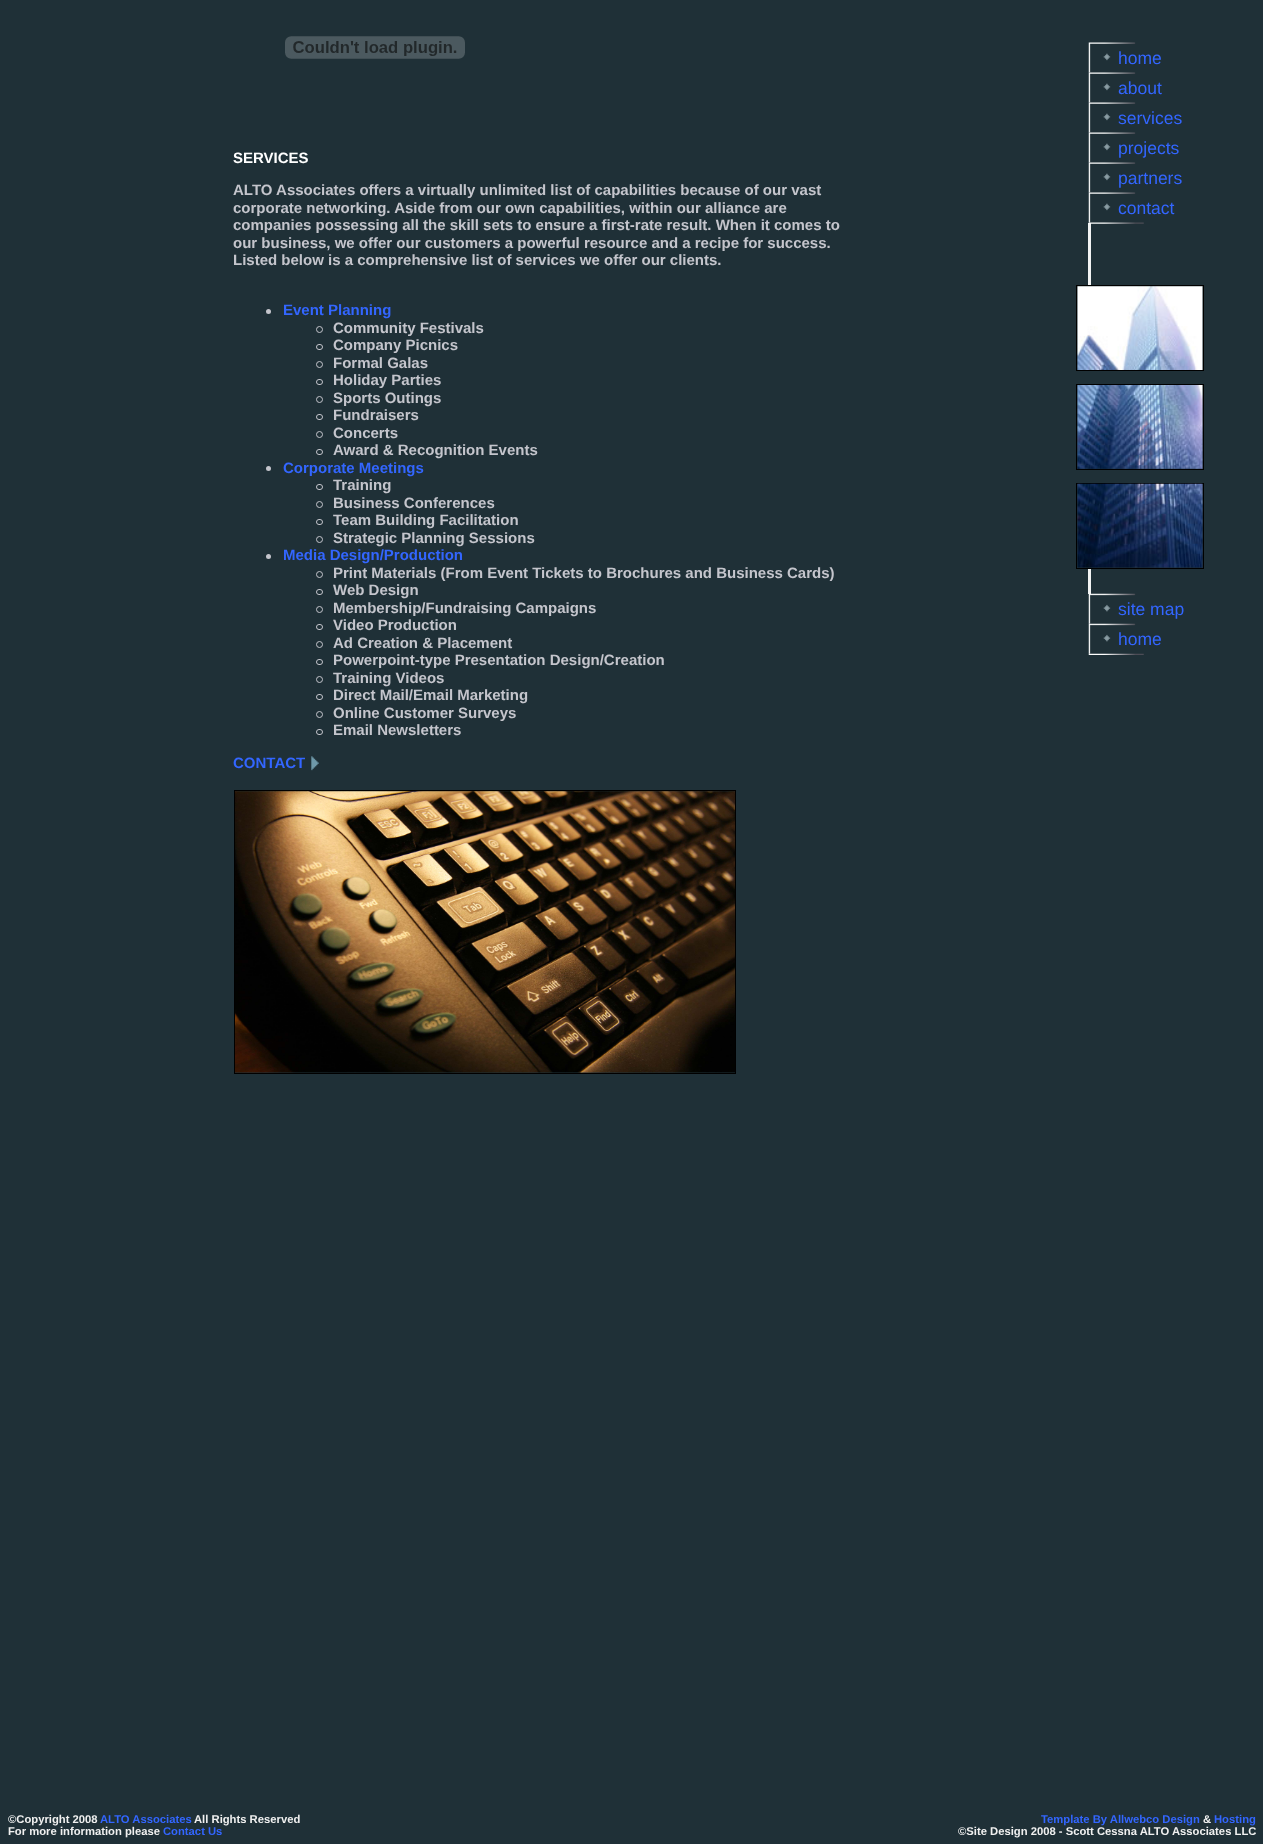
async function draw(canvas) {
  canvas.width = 1263;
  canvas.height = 1844;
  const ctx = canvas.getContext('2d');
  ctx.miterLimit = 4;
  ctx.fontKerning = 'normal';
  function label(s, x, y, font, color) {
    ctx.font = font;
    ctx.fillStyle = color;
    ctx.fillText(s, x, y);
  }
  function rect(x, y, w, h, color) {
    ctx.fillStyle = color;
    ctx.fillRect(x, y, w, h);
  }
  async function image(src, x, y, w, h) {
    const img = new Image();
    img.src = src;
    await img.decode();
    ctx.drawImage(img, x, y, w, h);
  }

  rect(0, 0, 1263, 1844, '#1f3037');
  await image('assets/img1.png', 285, 36, 180, 23);
  label('SERVICES', 233, 163, 'bold 15px Liberation Sans', '#fff');
  label('ALTO Associates offers a virtually unlimited list of capabilities because of our vast', 233, 195, 'bold 15px Liberation Sans', '#c4c5cc');
  label('corporate networking. Aside from our own capabilities, within our alliance are', 233, 213, 'bold 15px Liberation Sans', '#c4c5cc');
  label('companies possessing all the skill sets to ensure a first-rate result. When it comes to', 233, 230, 'bold 15px Liberation Sans', '#c4c5cc');
  label('our business, we offer our customers a powerful resource and a recipe for success.', 233, 248, 'bold 15px Liberation Sans', '#c4c5cc');
  label('Listed below is a comprehensive list of services we offer our clients.', 233, 265, 'bold 15px Liberation Sans', '#c4c5cc');
  ctx.beginPath();
  ctx.arc(268.5, 311.5, 2.5, 0, 2 * Math.PI);
  ctx.fill();
  label('Event Planning', 283, 315, 'bold 15px Liberation Sans', '#36f');
  ctx.beginPath();
  ctx.arc(319.5, 329.5, 3, 0, 2 * Math.PI);
  ctx.strokeStyle = '#c4c5cc';
  ctx.stroke();
  label('Community Festivals', 333, 333, 'bold 15px Liberation Sans', '#c4c5cc');
  ctx.beginPath();
  ctx.roundRect(316.5, 344.5, 6, 5, 2.5);
  ctx.stroke();
  label('Company Picnics', 333, 350, 'bold 15px Liberation Sans', '#c4c5cc');
  ctx.beginPath();
  ctx.arc(319.5, 364.5, 3, 0, 2 * Math.PI);
  ctx.stroke();
  label('Formal Galas', 333, 368, 'bold 15px Liberation Sans', '#c4c5cc');
  ctx.beginPath();
  ctx.roundRect(316.5, 379.5, 6, 5, 2.5);
  ctx.stroke();
  label('Holiday Parties', 333, 385, 'bold 15px Liberation Sans', '#c4c5cc');
  ctx.beginPath();
  ctx.arc(319.5, 399.5, 3, 0, 2 * Math.PI);
  ctx.stroke();
  label('Sports Outings', 333, 403, 'bold 15px Liberation Sans', '#c4c5cc');
  ctx.beginPath();
  ctx.roundRect(316.5, 414.5, 6, 5, 2.5);
  ctx.stroke();
  label('Fundraisers', 333, 420, 'bold 15px Liberation Sans', '#c4c5cc');
  ctx.beginPath();
  ctx.arc(319.5, 434.5, 3, 0, 2 * Math.PI);
  ctx.stroke();
  label('Concerts', 333, 438, 'bold 15px Liberation Sans', '#c4c5cc');
  ctx.beginPath();
  ctx.roundRect(316.5, 449.5, 6, 5, 2.5);
  ctx.stroke();
  label('Award & Recognition Events', 333, 455, 'bold 15px Liberation Sans', '#c4c5cc');
  ctx.beginPath();
  ctx.arc(268.5, 468.5, 2.5, 0, 2 * Math.PI);
  ctx.fill();
  label('Corporate Meetings', 283, 473, 'bold 15px Liberation Sans', '#36f');
  ctx.beginPath();
  ctx.roundRect(316.5, 484.5, 6, 5, 2.5);
  ctx.stroke();
  label('Training', 333, 490, 'bold 15px Liberation Sans', '#c4c5cc');
  ctx.beginPath();
  ctx.arc(319.5, 504.5, 3, 0, 2 * Math.PI);
  ctx.stroke();
  label('Business Conferences', 333, 508, 'bold 15px Liberation Sans', '#c4c5cc');
  ctx.beginPath();
  ctx.roundRect(316.5, 519.5, 6, 5, 2.5);
  ctx.stroke();
  label('Team Building Facilitation', 333, 525, 'bold 15px Liberation Sans', '#c4c5cc');
  ctx.beginPath();
  ctx.arc(319.5, 539.5, 3, 0, 2 * Math.PI);
  ctx.stroke();
  label('Strategic Planning Sessions', 333, 543, 'bold 15px Liberation Sans', '#c4c5cc');
  ctx.beginPath();
  ctx.arc(268.5, 556.5, 2.5, 0, 2 * Math.PI);
  ctx.fill();
  label('Media Design/Production', 283, 560, 'bold 15px Liberation Sans', '#36f');
  ctx.beginPath();
  ctx.arc(319.5, 574.5, 3, 0, 2 * Math.PI);
  ctx.stroke();
  label('Print Materials (From Event Tickets to Brochures and Business Cards)', 333, 578, 'bold 15px Liberation Sans', '#c4c5cc');
  ctx.beginPath();
  ctx.roundRect(316.5, 589.5, 6, 5, 2.5);
  ctx.stroke();
  label('Web Design', 333, 595, 'bold 15px Liberation Sans', '#c4c5cc');
  ctx.beginPath();
  ctx.arc(319.5, 609.5, 3, 0, 2 * Math.PI);
  ctx.stroke();
  label('Membership/Fundraising Campaigns', 333, 613, 'bold 15px Liberation Sans', '#c4c5cc');
  ctx.beginPath();
  ctx.roundRect(316.5, 624.5, 6, 5, 2.5);
  ctx.stroke();
  label('Video Production', 333, 630, 'bold 15px Liberation Sans', '#c4c5cc');
  ctx.beginPath();
  ctx.arc(319.5, 644.5, 3, 0, 2 * Math.PI);
  ctx.stroke();
  label('Ad Creation & Placement', 333, 648, 'bold 15px Liberation Sans', '#c4c5cc');
  ctx.beginPath();
  ctx.roundRect(316.5, 659.5, 6, 5, 2.5);
  ctx.stroke();
  label('Powerpoint-type Presentation Design/Creation', 333, 665, 'bold 15px Liberation Sans', '#c4c5cc');
  ctx.beginPath();
  ctx.arc(319.5, 679.5, 3, 0, 2 * Math.PI);
  ctx.stroke();
  label('Training Videos', 333, 683, 'bold 15px Liberation Sans', '#c4c5cc');
  ctx.beginPath();
  ctx.roundRect(316.5, 694.5, 6, 5, 2.5);
  ctx.stroke();
  label('Direct Mail/Email Marketing', 333, 700, 'bold 15px Liberation Sans', '#c4c5cc');
  ctx.beginPath();
  ctx.arc(319.5, 714.5, 3, 0, 2 * Math.PI);
  ctx.stroke();
  label('Online Customer Surveys', 333, 718, 'bold 15px Liberation Sans', '#c4c5cc');
  ctx.beginPath();
  ctx.roundRect(316.5, 729.5, 6, 5, 2.5);
  ctx.stroke();
  label('Email Newsletters', 333, 735, 'bold 15px Liberation Sans', '#c4c5cc');
  label('CONTACT', 233, 768, 'bold 15px Liberation Sans', '#36f');
  await image('assets/img2.png', 311, 756, 8, 15);
  ctx.strokeStyle = '#000';
  ctx.strokeRect(234.5, 790.5, 501, 283);
  await image('assets/img3.png', 235, 791, 500, 282);
  await image('assets/img4.png', 1088, 42, 48, 31);
  label('home', 1118, 64, '17.5px Liberation Sans', '#36f');
  await image('assets/img5.png', 1088, 72, 48, 31);
  label('about', 1118, 94, '17.5px Liberation Sans', '#36f');
  await image('assets/img5.png', 1088, 102, 48, 31);
  label('services', 1118, 124, '17.5px Liberation Sans', '#36f');
  await image('assets/img5.png', 1088, 132, 48, 31);
  label('projects', 1118, 154, '17.5px Liberation Sans', '#36f');
  await image('assets/img5.png', 1088, 162, 48, 31);
  label('partners', 1118, 184, '17.5px Liberation Sans', '#36f');
  await image('assets/img5.png', 1088, 192, 48, 31);
  label('contact', 1118, 214, '17.5px Liberation Sans', '#36f');
  rect(1088, 223, 3, 62, '#f2f3f3');
  await image('assets/img6.png', 1088, 222, 56, 2);
  ctx.strokeRect(1076.5, 285.5, 127, 85);
  await image('assets/img7.png', 1077, 286, 126, 84);
  ctx.strokeRect(1076.5, 384.5, 127, 85);
  await image('assets/img8.png', 1077, 385, 126, 84);
  rect(1088, 568, 3, 26, '#f2f3f3');
  ctx.strokeRect(1076.5, 483.5, 127, 85);
  await image('assets/img9.png', 1077, 483, 126, 85);
  await image('assets/img10.png', 1088, 593, 48, 31);
  label('site map', 1118, 615, '17.5px Liberation Sans', '#36f');
  await image('assets/img11.png', 1088, 623, 48, 31);
  label('home', 1118, 645, '17.5px Liberation Sans', '#36f');
  await image('assets/img12.png', 1088, 653, 56, 2);
  label('©Copyright 2008', 8, 1823, 'bold 11.25px Liberation Sans', '#f0f0f0');
  label('ALTO Associates', 100, 1823, 'bold 11.25px Liberation Sans', '#36f');
  label('All Rights Reserved', 194, 1823, 'bold 11.25px Liberation Sans', '#f0f0f0');
  label('For more information please', 8, 1835, 'bold 11.25px Liberation Sans', '#f0f0f0');
  label('Contact Us', 163, 1835, 'bold 11.25px Liberation Sans', '#36f');
  label('Template By Allwebco Design', 1041, 1823, 'bold 11.25px Liberation Sans', '#36f');
  label('&', 1203, 1823, 'bold 11.25px Liberation Sans', '#f0f0f0');
  label('Hosting', 1214, 1823, 'bold 11.25px Liberation Sans', '#36f');
  label('©Site Design 2008 - Scott Cessna ALTO Associates LLC', 958, 1835, 'bold 11.25px Liberation Sans', '#f0f0f0');
}

draw(document.querySelector('canvas'));
